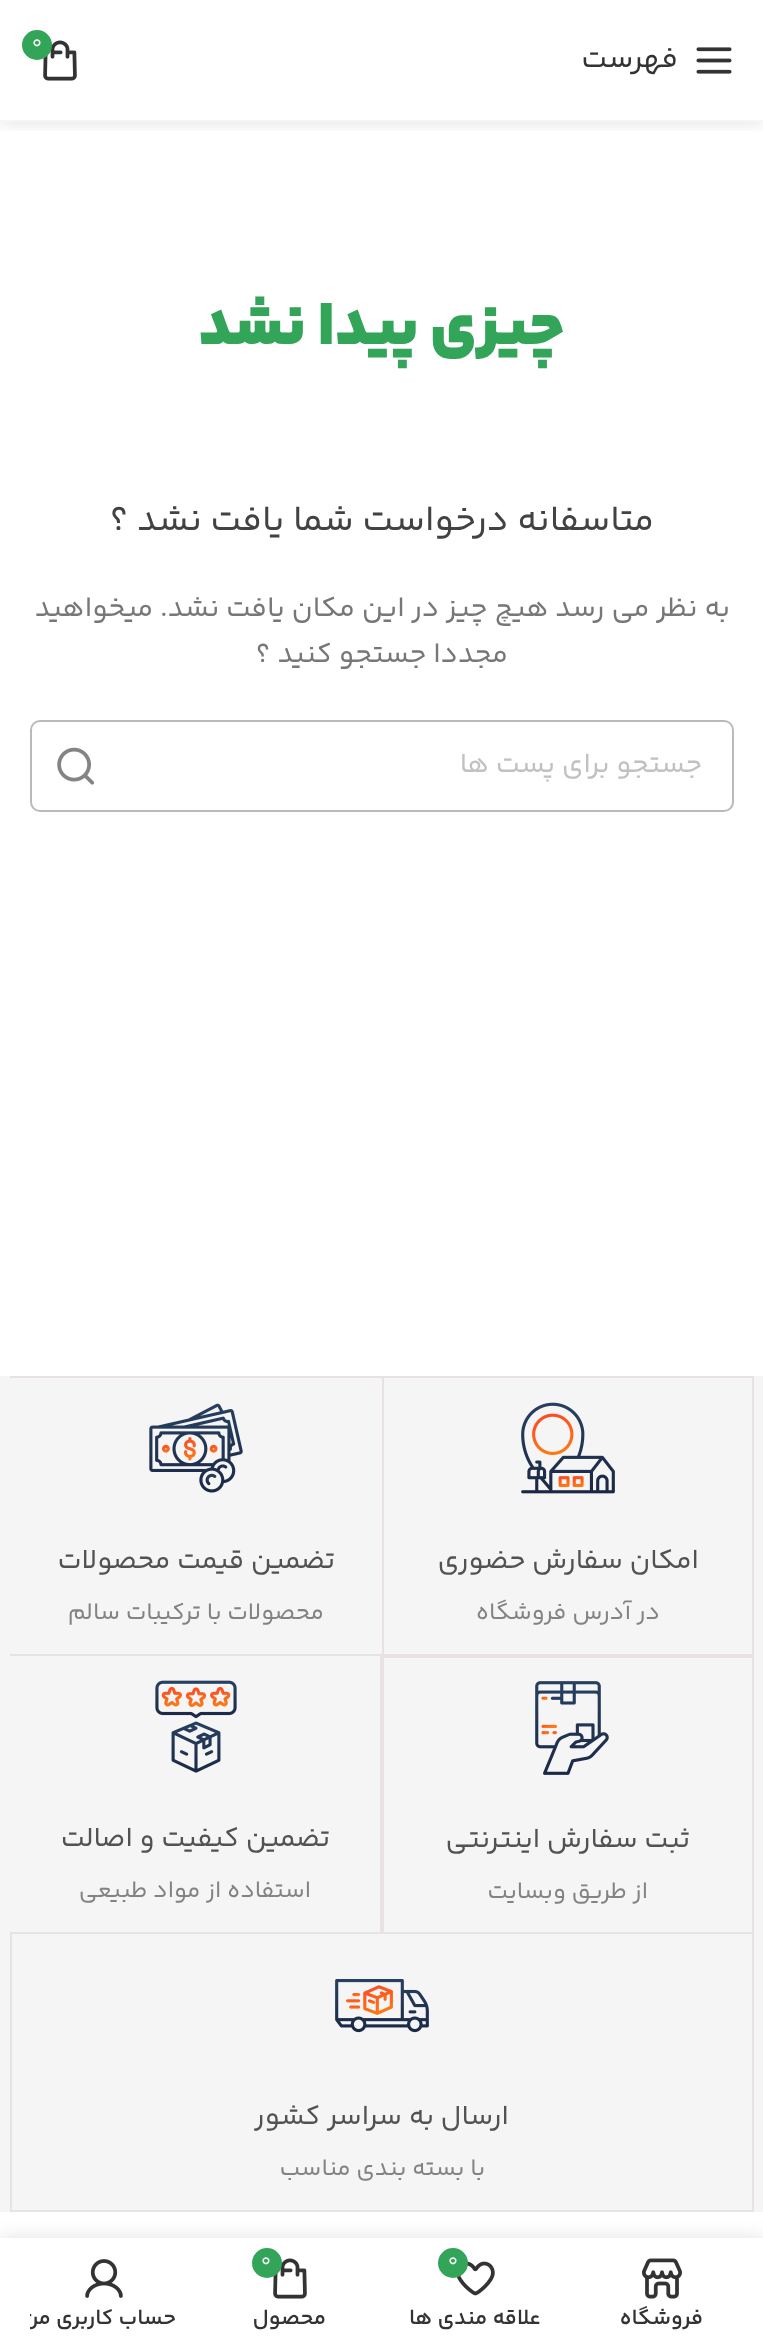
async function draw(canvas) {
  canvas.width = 763;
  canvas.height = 2348;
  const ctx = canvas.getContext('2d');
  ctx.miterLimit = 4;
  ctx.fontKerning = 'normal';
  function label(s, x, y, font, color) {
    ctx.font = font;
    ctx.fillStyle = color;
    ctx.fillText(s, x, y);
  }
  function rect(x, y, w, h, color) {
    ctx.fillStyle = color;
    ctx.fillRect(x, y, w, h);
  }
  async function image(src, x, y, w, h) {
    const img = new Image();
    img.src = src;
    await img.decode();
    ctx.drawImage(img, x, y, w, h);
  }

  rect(0, 0, 763, 2348, '#fff');
  ctx.save();
  ctx.beginPath();
  ctx.rect(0, 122, 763, 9);
  ctx.clip();
  ctx.fillStyle = '#0000001a';
  ctx.filter = 'blur(8px)';
  ctx.beginPath();
  ctx.rect(0, 2, 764, 122);
  ctx.fill();
  ctx.filter = 'none';
  ctx.restore();
  rect(0, 120, 763, 2, '#f6f6f6');
  await image('assets/img1.png', 43, 40, 34, 41);
  ctx.fillStyle = '#33a559';
  ctx.beginPath();
  ctx.arc(37, 45, 15, 0, 2 * Math.PI);
  ctx.fill();
  label('0', 32, 48, '18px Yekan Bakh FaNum', '#fff');
  await image('assets/img2.png', 696, 47, 36, 27);
  ctx.direction = 'rtl';
  label('فهرست', 678, 67, '30px Yekan Bakh FaNum', '#333');
  label('چیزی پیدا نشد', 565, 344, '900 64px Yekan Bakh FaNum', '#33a559');
  label('متاسفانه درخواست شما یافت نشد ؟', 654, 530, '36px Yekan Bakh FaNum', '#424242');
  label('به نظر می رسد هیچ چیز در این مکان یافت نشد. میخواهید', 730, 616, '28.6px Yekan Bakh FaNum', '#777');
  label('مجددا جستجو کنید ؟', 508, 662, '28.6px Yekan Bakh FaNum', '#777');
  ctx.beginPath();
  ctx.roundRect(31, 721, 702, 90, 9);
  ctx.strokeStyle = '#bababa';
  ctx.lineWidth = 2;
  ctx.stroke();
  label('جستجو برای پست ها', 702, 772, '28px Yekan Bakh FaNum', '#c1c1c1');
  await image('assets/img3.png', 57, 747, 38, 38);
  rect(0, 1376, 763, 836, '#f5f5f5');
  ctx.strokeStyle = '#e8e2e2';
  ctx.strokeRect(383, 1377, 370, 278);
  await image('assets/img4.png', 521, 1402, 94, 92);
  label('امکان سفارش حضوری', 699, 1568, '28px Yekan Bakh FaNum', '#525252');
  label('در آدرس فروشگاه', 660, 1619, '24px Yekan Bakh FaNum', '#838383');
  rect(10, 1376, 372, 2, '#e8e2e2');
  rect(10, 1654, 372, 2, '#e8e2e2');
  await image('assets/img5.png', 149, 1403, 94, 90);
  label('تضمین قیمت محصولات', 335, 1568, '28px Yekan Bakh FaNum', '#525252');
  label('محصولات با ترکیبات سالم', 324, 1619, '24px Yekan Bakh FaNum', '#838383');
  ctx.strokeRect(383, 1657, 370, 276);
  await image('assets/img6.png', 535, 1681, 74, 94);
  label('ثبت سفارش اینترنتی', 690, 1847, '28px Yekan Bakh FaNum', '#525252');
  label('از طریق وبسایت', 648, 1898, '24px Yekan Bakh FaNum', '#838383');
  rect(380, 1656, 2, 278, '#e8e2e2');
  rect(10, 1932, 372, 2, '#e8e2e2');
  await image('assets/img7.png', 155, 1680, 82, 93);
  label('تضمین کیفیت و اصالت', 330, 1846, '28px Yekan Bakh FaNum', '#525252');
  label('استفاده از مواد طبیعی', 311, 1897, '24px Yekan Bakh FaNum', '#838383');
  rect(752, 1934, 2, 278, '#e8e2e2');
  rect(10, 2210, 744, 2, '#e8e2e2');
  rect(10, 1934, 2, 278, '#e8e2e2');
  await image('assets/img8.png', 335, 1979, 94, 54);
  label('ارسال به سراسر کشور', 509, 2124, '28px Yekan Bakh FaNum', '#525252');
  label('با بسته بندی مناسب', 485, 2175, '24px Yekan Bakh FaNum', '#838383');
  ctx.fillStyle = '#0000001f';
  ctx.filter = 'blur(9px)';
  ctx.beginPath();
  ctx.rect(0, 2238, 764, 110);
  ctx.fill();
  ctx.filter = 'none';
  rect(0, 2238, 763, 110, '#fff');
  await image('assets/img9.png', 642, 2258, 40, 41);
  label('فروشگاه', 703, 2324, '600 22px Yekan Bakh FaNum', '#333');
  await image('assets/img10.png', 456, 2261, 39, 35);
  ctx.fillStyle = '#33a559';
  ctx.beginPath();
  ctx.arc(453, 2263, 15, 0, 2 * Math.PI);
  ctx.fill();
  ctx.direction = 'ltr';
  label('0', 448, 2266, '18px Yekan Bakh FaNum', '#fff');
  ctx.direction = 'rtl';
  label('علاقه مندی ها', 541, 2324, '600 22px Yekan Bakh FaNum', '#333');
  await image('assets/img1.png', 273, 2258, 34, 41);
  ctx.fillStyle = '#33a559';
  ctx.beginPath();
  ctx.arc(267, 2263, 15, 0, 2 * Math.PI);
  ctx.fill();
  ctx.direction = 'ltr';
  label('0', 261, 2266, '18px Yekan Bakh FaNum', '#fff');
  ctx.direction = 'rtl';
  label('محصول', 326, 2324, '600 22px Yekan Bakh FaNum', '#333');
  await image('assets/img11.png', 85, 2259, 38, 39);
  ctx.save();
  ctx.beginPath();
  ctx.rect(30, 2306, 146, 26);
  ctx.clip();
  label('حساب کاربری من', 176, 2324, '600 22px Yekan Bakh FaNum', '#333');
  ctx.restore();
}

draw(document.querySelector('canvas'));
